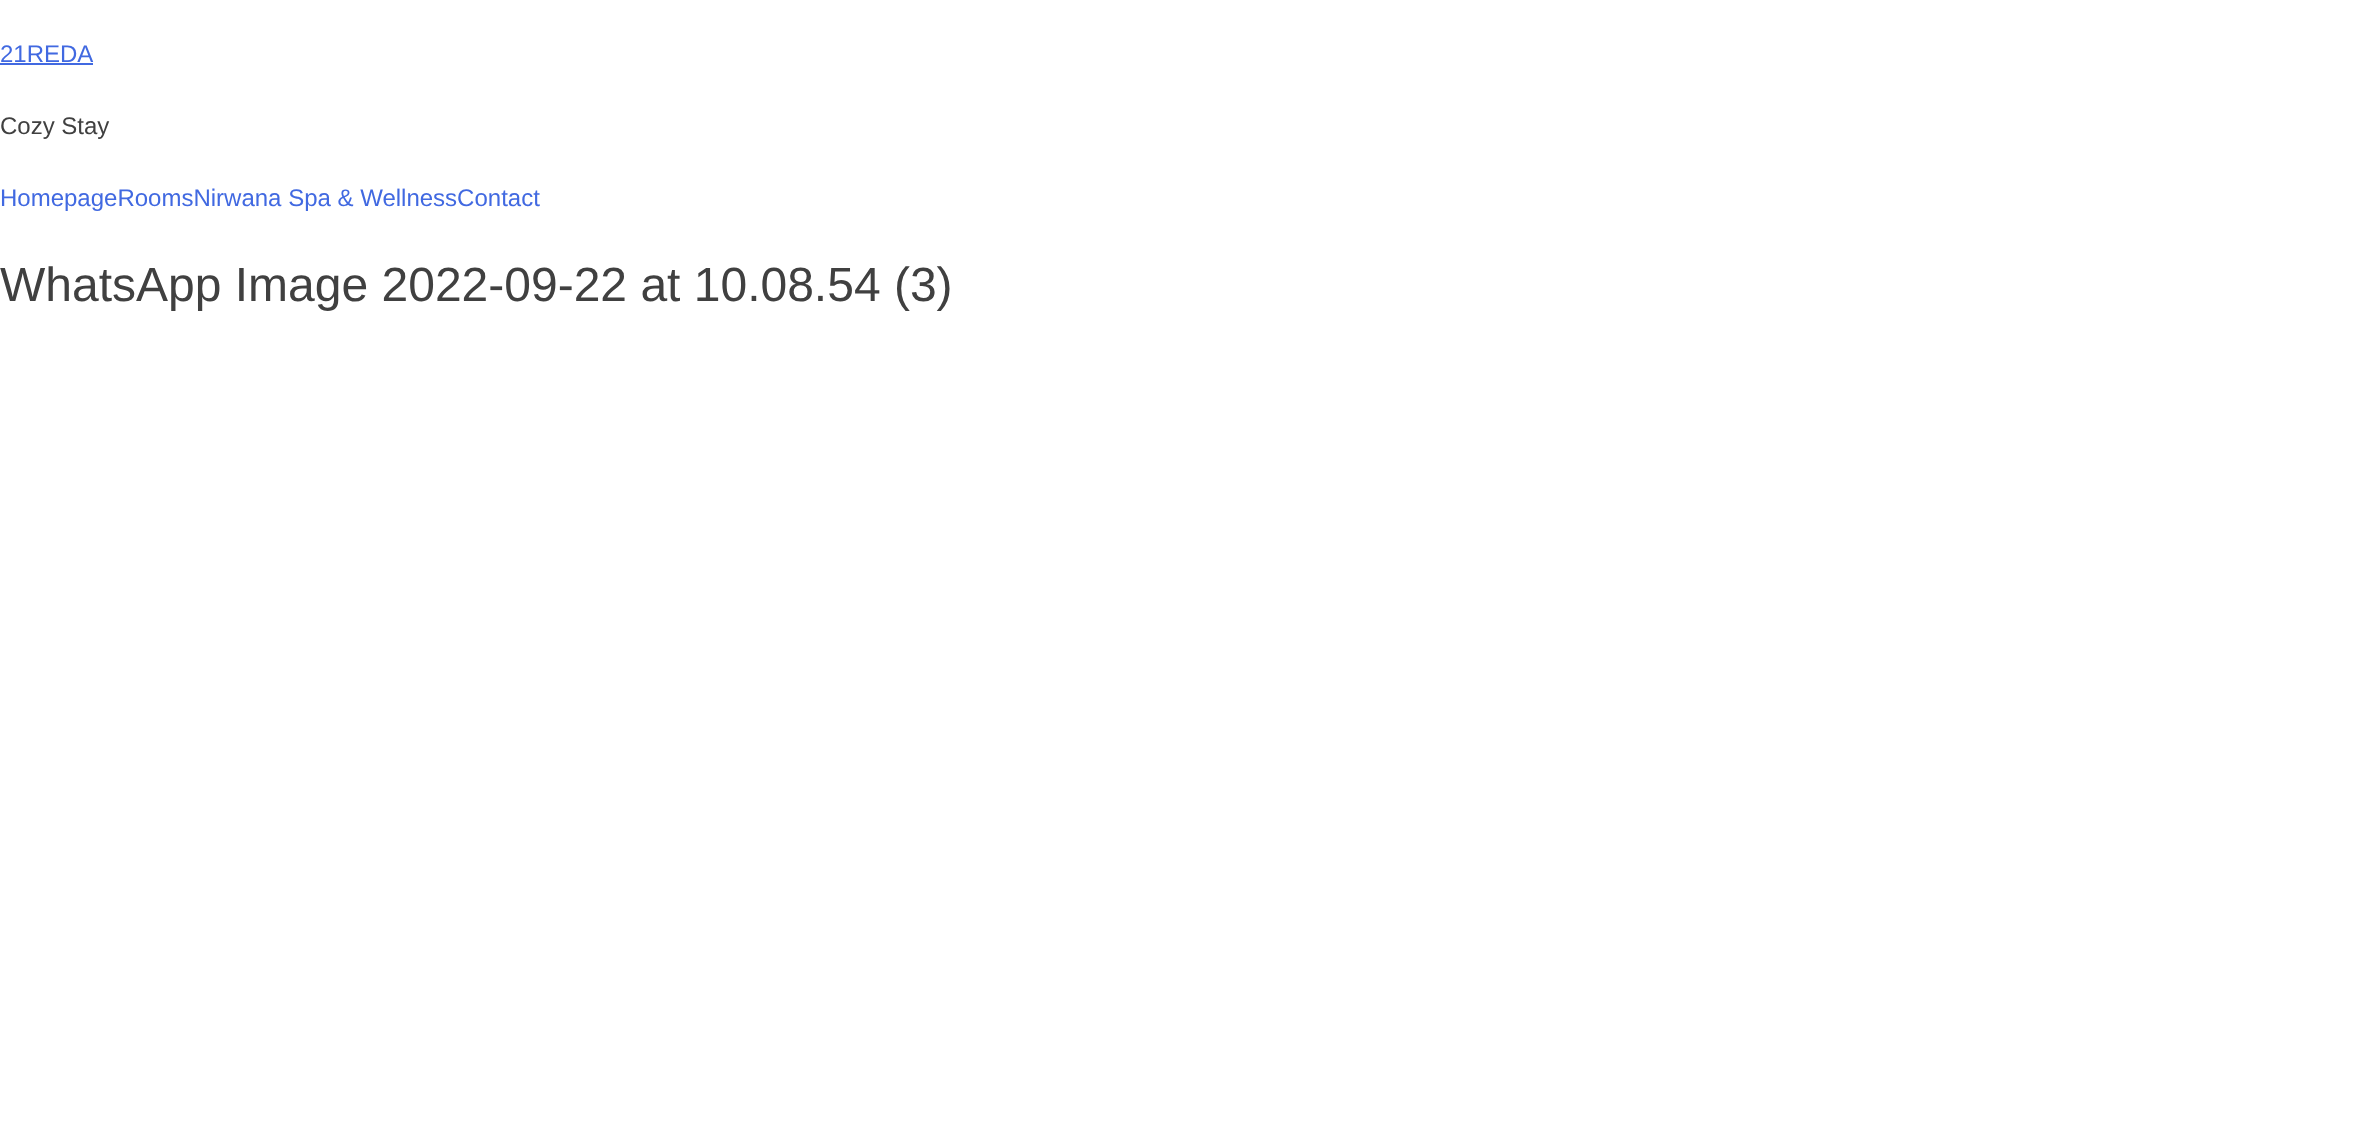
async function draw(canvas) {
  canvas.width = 2362;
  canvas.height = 1126;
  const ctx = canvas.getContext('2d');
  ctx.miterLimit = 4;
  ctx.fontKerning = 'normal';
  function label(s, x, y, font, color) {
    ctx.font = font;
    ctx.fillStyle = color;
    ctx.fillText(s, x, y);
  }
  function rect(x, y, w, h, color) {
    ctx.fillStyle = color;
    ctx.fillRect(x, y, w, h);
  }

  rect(0, 0, 2362, 1126, '#fff');
  label('21REDA', 0, 62, '24px Liberation Sans', '#4169e1');
  rect(0, 63, 93, 2, '#4169e1');
  label('Cozy Stay', 0, 134, '24px Liberation Sans', '#404040');
  label('HomepageRoomsNirwana Spa & WellnessContact', 0, 206, '24px Liberation Sans', '#4169e1');
  label('WhatsApp Image 2022-09-22 at 10.08.54 (3)', 0, 301, '48px Liberation Sans', '#404040');
}

draw(document.querySelector('canvas'));
